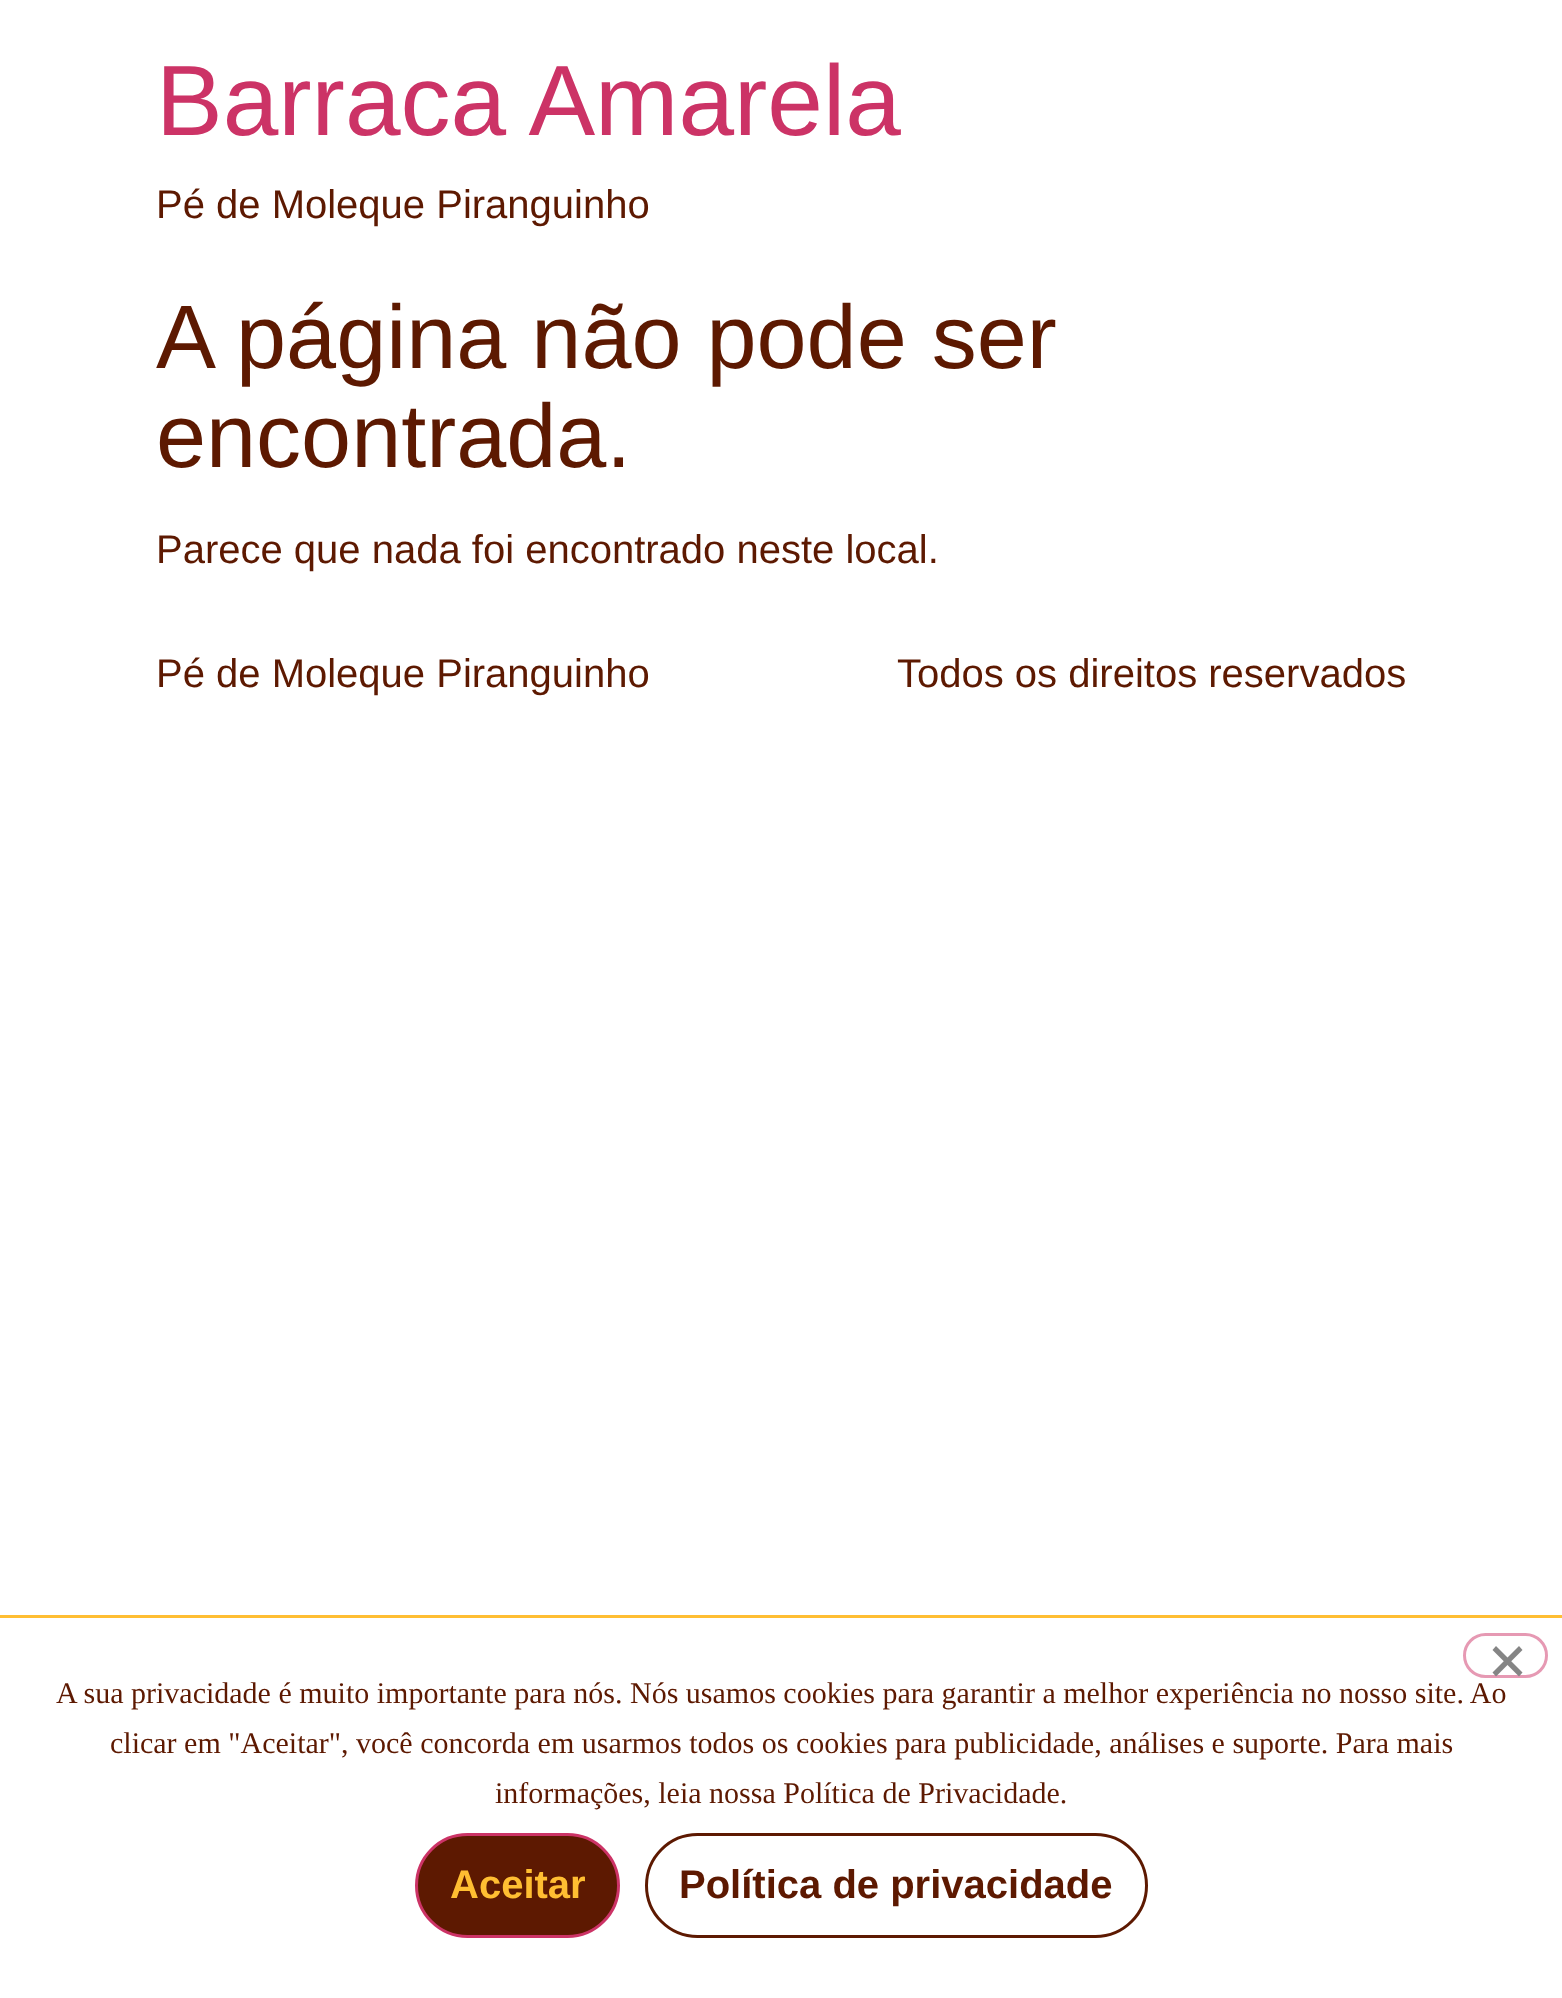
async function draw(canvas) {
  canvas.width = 1562;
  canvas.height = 1998;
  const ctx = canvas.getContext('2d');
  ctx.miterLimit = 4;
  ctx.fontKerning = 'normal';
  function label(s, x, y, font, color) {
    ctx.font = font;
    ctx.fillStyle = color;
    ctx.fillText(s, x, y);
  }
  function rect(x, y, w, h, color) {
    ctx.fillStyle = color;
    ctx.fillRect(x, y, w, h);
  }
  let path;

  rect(0, 0, 1562, 1998, '#fff');
  label('Barraca Amarela', 156, 135, '100px Liberation Sans', '#c36');
  label('Pé de Moleque Piranguinho', 156, 218, '40px Liberation Sans', '#5d1901');
  label('A página não pode ser', 156, 368, '90px Liberation Sans', '#5d1901');
  label('encontrada.', 156, 467, '90px Liberation Sans', '#5d1901');
  label('Parece que nada foi encontrado neste local.', 156, 563, '40px Liberation Sans', '#5d1901');
  label('Pé de Moleque Piranguinho', 156, 687, '40px Liberation Sans', '#5d1901');
  label('Todos os direitos reservados', 897, 687, '40px Liberation Sans', '#5d1901');
  rect(0, 1615, 1562, 3, '#ffbe32');
  ctx.beginPath();
  ctx.roundRect(1464.5, 1634.5, 82, 42, 21);
  ctx.strokeStyle = '#e699b3';
  ctx.lineWidth = 3;
  ctx.stroke();
  ctx.fillStyle = '#858585';
  path = new Path2D('M1519 1646L1522.5 1650L1496 1676.5L1492.5 1672.5Z');
  ctx.fill(path);
  path = new Path2D('M1492.5 1650L1496 1646L1522.5 1672.5L1519 1676.5Z');
  ctx.fill(path);
  label('A sua privacidade é muito importante para nós. Nós usamos cookies para garantir a melhor experiência no nosso site. Ao', 56, 1703, '30px Liberation Serif', '#5d1901');
  label('clicar em "Aceitar", você concorda em usarmos todos os cookies para publicidade, análises e suporte. Para mais', 110, 1753, '30px Liberation Serif', '#5d1901');
  label('informações, leia nossa Política de Privacidade.', 495, 1803, '30px Liberation Serif', '#5d1901');
  ctx.beginPath();
  ctx.roundRect(416.5, 1834.5, 202, 102, 51);
  ctx.fill();
  ctx.strokeStyle = '#c36';
  ctx.stroke();
  label('Aceitar', 450, 1898, 'bold 40px Liberation Sans', '#ffbe32');
  ctx.beginPath();
  ctx.roundRect(646.5, 1834.5, 500, 102, 51);
  ctx.strokeStyle = '#5d1901';
  ctx.stroke();
  label('Política de privacidade', 679, 1898, 'bold 40px Liberation Sans', '#5d1901');
}

draw(document.querySelector('canvas'));
